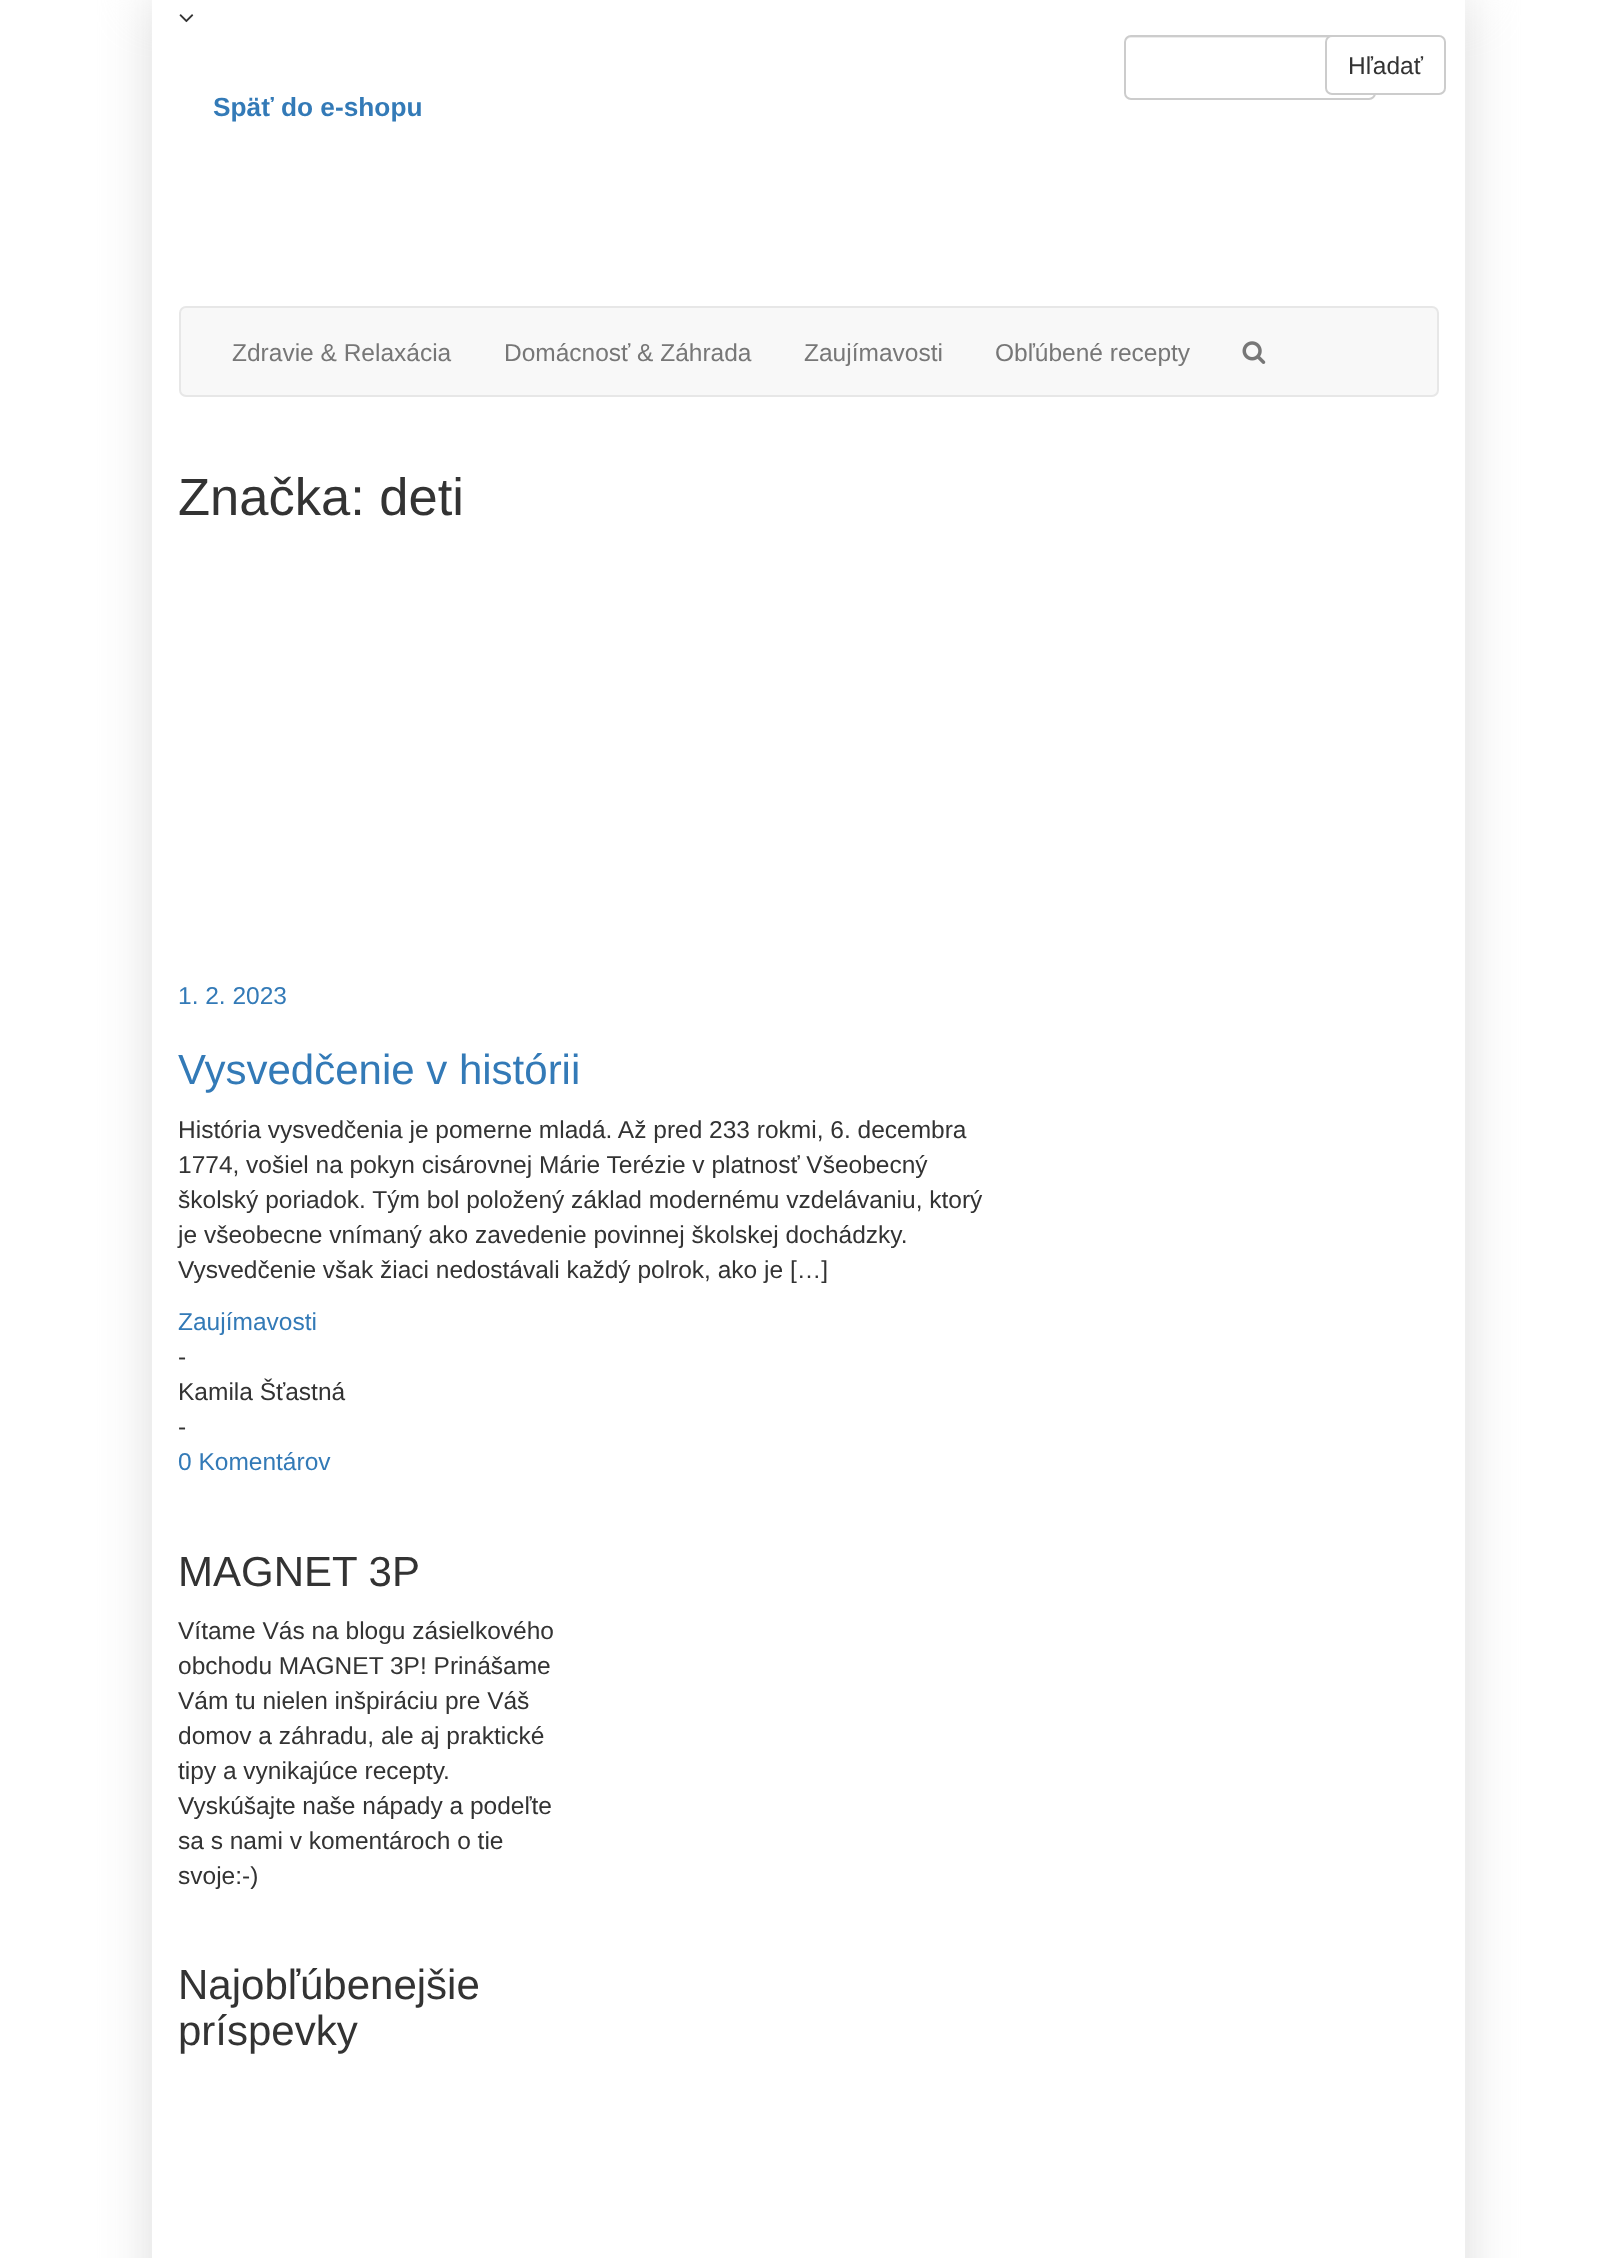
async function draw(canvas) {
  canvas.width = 1614;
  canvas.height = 2258;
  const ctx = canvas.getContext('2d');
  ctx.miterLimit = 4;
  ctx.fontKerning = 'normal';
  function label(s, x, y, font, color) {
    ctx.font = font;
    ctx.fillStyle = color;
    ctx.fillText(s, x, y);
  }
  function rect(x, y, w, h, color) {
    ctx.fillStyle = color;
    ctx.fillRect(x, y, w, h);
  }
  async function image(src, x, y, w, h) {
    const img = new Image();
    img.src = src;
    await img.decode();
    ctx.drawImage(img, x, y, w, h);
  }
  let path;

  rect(0, 0, 1614, 2258, '#fff');
  ctx.fillStyle = '#ddd';
  ctx.filter = 'blur(26px)';
  ctx.beginPath();
  ctx.rect(151, -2, 1316, 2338);
  ctx.fill();
  ctx.filter = 'none';
  rect(152, 0, 1313, 2258, '#fff');
  await image('assets/img1.png', 179, 14, 15, 9);
  ctx.fillStyle = '#ececec';
  path = new Path2D('M1130 38H1368C1371 38 1374 41 1374 44C1374 41 1374 38 1370 37H1129C1125 38 1125 41 1125 44C1125 41 1128 38 1130 38Z');
  ctx.fill(path);
  ctx.beginPath();
  ctx.roundRect(1125, 36, 250, 63, 6);
  ctx.strokeStyle = '#ccc';
  ctx.lineWidth = 2;
  ctx.stroke();
  ctx.fillStyle = '#fff';
  ctx.beginPath();
  ctx.roundRect(1326, 36, 119, 58, 6);
  ctx.fill();
  ctx.stroke();
  label('Hľadať', 1348, 74, '24.5px Liberation Sans', '#333');
  label('Späť do e-shopu', 213, 116, 'bold 26.25px Liberation Sans', '#337ab7');
  ctx.fillStyle = '#f8f8f8';
  ctx.beginPath();
  ctx.roundRect(180, 307, 1258, 89, 6);
  ctx.fill();
  ctx.strokeStyle = '#e7e7e7';
  ctx.stroke();
  label('Zdravie & Relaxácia', 232, 361, '24.5px Liberation Sans', '#777');
  label('Domácnosť & Záhrada', 504, 361, '24.5px Liberation Sans', '#777');
  label('Zaujímavosti', 804, 361, '24.5px Liberation Sans', '#777');
  label('Obľúbené recepty', 995, 361, '24.5px Liberation Sans', '#777');
  await image('assets/img2.png', 1242, 341, 24, 23);
  label('Značka: deti', 178, 515, '52.5px Liberation Sans', '#333');
  label('1. 2. 2023', 178, 1004, '24.5px Liberation Sans', '#337ab7');
  label('Vysvedčenie v histórii', 178, 1084, '42px Liberation Sans', '#337ab7');
  label('História vysvedčenia je pomerne mladá. Až pred 233 rokmi, 6. decembra', 178, 1138, '24.5px Liberation Sans', '#333');
  label('1774, vošiel na pokyn cisárovnej Márie Terézie v platnosť Všeobecný', 178, 1173, '24.5px Liberation Sans', '#333');
  label('školský poriadok. Tým bol položený základ modernému vzdelávaniu, ktorý', 178, 1208, '24.5px Liberation Sans', '#333');
  label('je všeobecne vnímaný ako zavedenie povinnej školskej dochádzky.', 178, 1243, '24.5px Liberation Sans', '#333');
  label('Vysvedčenie však žiaci nedostávali každý polrok, ako je […]', 178, 1278, '24.5px Liberation Sans', '#333');
  label('Zaujímavosti', 178, 1330, '24.5px Liberation Sans', '#337ab7');
  label('-', 178, 1365, '24.5px Liberation Sans', '#333');
  label('Kamila Šťastná', 178, 1400, '24.5px Liberation Sans', '#333');
  label('-', 178, 1435, '24.5px Liberation Sans', '#333');
  label('0 Komentárov', 178, 1470, '24.5px Liberation Sans', '#337ab7');
  label('MAGNET 3P', 178, 1586, '42px Liberation Sans', '#333');
  label('Vítame Vás na blogu zásielkového', 178, 1639, '24.5px Liberation Sans', '#333');
  label('obchodu MAGNET 3P! Prinášame', 178, 1674, '24.5px Liberation Sans', '#333');
  label('Vám tu nielen inšpiráciu pre Váš', 178, 1709, '24.5px Liberation Sans', '#333');
  label('domov a záhradu, ale aj praktické', 178, 1744, '24.5px Liberation Sans', '#333');
  label('tipy a vynikajúce recepty.', 178, 1779, '24.5px Liberation Sans', '#333');
  label('Vyskúšajte naše nápady a podeľte', 178, 1814, '24.5px Liberation Sans', '#333');
  label('sa s nami v komentároch o tie', 178, 1849, '24.5px Liberation Sans', '#333');
  label('svoje:-)', 178, 1884, '24.5px Liberation Sans', '#333');
  label('Najobľúbenejšie', 178, 1999, '42px Liberation Sans', '#333');
  label('príspevky', 178, 2045, '42px Liberation Sans', '#333');
}

draw(document.querySelector('canvas'));
